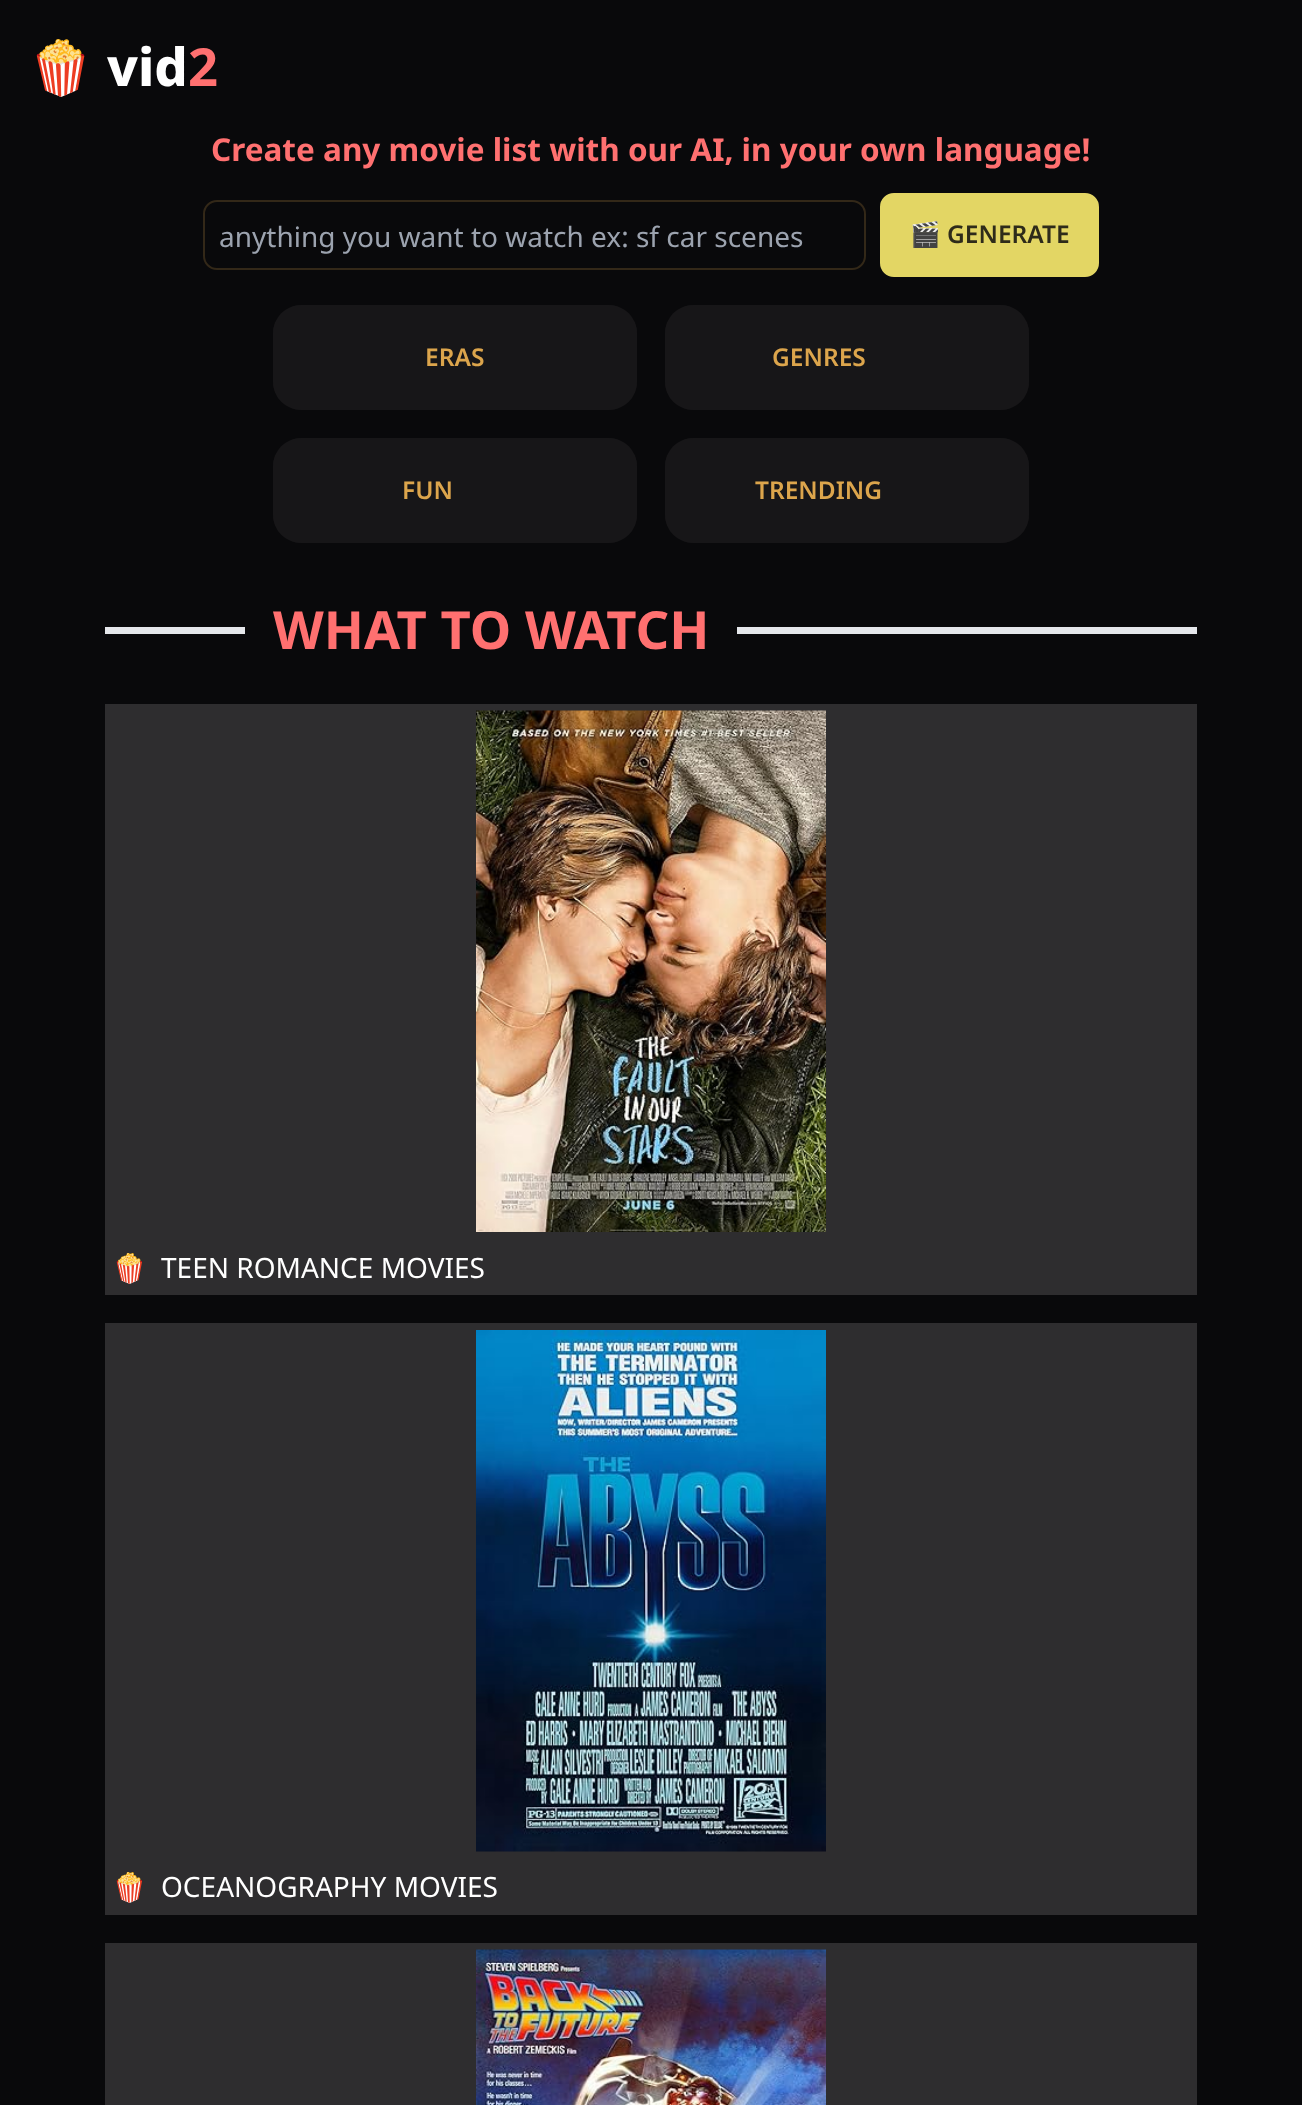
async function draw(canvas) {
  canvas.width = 1302;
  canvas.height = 2105;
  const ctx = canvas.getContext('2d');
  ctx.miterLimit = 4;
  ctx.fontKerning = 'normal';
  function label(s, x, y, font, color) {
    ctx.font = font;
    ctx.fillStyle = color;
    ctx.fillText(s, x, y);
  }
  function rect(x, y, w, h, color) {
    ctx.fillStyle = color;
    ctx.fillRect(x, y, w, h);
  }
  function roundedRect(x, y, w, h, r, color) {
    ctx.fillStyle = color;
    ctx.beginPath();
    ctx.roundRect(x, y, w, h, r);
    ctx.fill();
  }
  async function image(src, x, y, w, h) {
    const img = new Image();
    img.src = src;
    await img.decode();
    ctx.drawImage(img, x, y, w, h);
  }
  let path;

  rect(0, 0, 1302, 2105, '#09090b');
  label('🍿', 28, 86, 'bold 52.5px Noto Color Emoji', '#fff');
  label('vid', 107, 86, '800 52.5px Noto Sans', '#fff');
  label('2', 188, 86, 'bold 52.5px Noto Sans', '#ff7070');
  label('Create any movie list with our AI, in your own language!', 211, 161, 'bold 31.5px Noto Sans', '#ff7070');
  ctx.beginPath();
  ctx.roundRect(204, 201, 661, 68, 13);
  ctx.strokeStyle = '#332818';
  ctx.lineWidth = 2;
  ctx.stroke();
  label('anything you want to watch ex: sf car scenes', 219, 247, '28px Noto Sans', '#9ca3af');
  ctx.fillStyle = '#e3d664';
  ctx.beginPath();
  ctx.roundRect(881, 194, 217, 82, 13);
  ctx.fill();
  ctx.strokeStyle = '#e3d664';
  ctx.stroke();
  label('🎬', 910, 243, '24.5px Noto Color Emoji', '#2e2b1a');
  label('GENERATE', 947, 243, '600 24.5px Noto Sans', '#2e2b1a');
  roundedRect(273, 305, 364, 105, 28, '#171618');
  path = new Path2D('M273 333V382C273 386 274 389 275 392V323C274 326 273 329 273 333ZM301 305C297 305 294 306 291 307H619C616 306 613 305 609 305ZM637 333C637 329 636 326 635 323V392C636 389 637 386 637 382ZM609 410C613 410 616 409 619 408H291C294 409 297 410 301 410Z');
  ctx.fill(path, 'evenodd');
  label('ERAS', 425, 366, '600 24.5px Noto Sans', '#dca54c');
  roundedRect(665, 305, 364, 105, 28, '#171618');
  path = new Path2D('M665 333V382C665 386 666 389 667 392V323C666 326 665 329 665 333ZM693 305C689 305 686 306 683 307H1011C1008 306 1005 305 1001 305ZM1029 333C1029 329 1028 326 1027 323V392C1028 389 1029 386 1029 382ZM1001 410C1005 410 1008 409 1011 408H683C686 409 689 410 693 410Z');
  ctx.fill(path, 'evenodd');
  label('GENRES', 772, 366, '600 24.5px Noto Sans', '#dca54c');
  roundedRect(273, 438, 364, 105, 28, '#171618');
  path = new Path2D('M273 466V515C273 519 274 522 275 525V456C274 459 273 462 273 466ZM301 438C297 438 294 439 291 440H619C616 439 613 438 609 438ZM637 466C637 462 636 459 635 456V525C636 522 637 519 637 515ZM609 543C613 543 616 542 619 541H291C294 542 297 543 301 543Z');
  ctx.fill(path, 'evenodd');
  label('FUN', 402, 499, '600 24.5px Noto Sans', '#dca54c');
  roundedRect(665, 438, 364, 105, 28, '#171618');
  path = new Path2D('M665 466V515C665 519 666 522 667 525V456C666 459 665 462 665 466ZM693 438C689 438 686 439 683 440H1011C1008 439 1005 438 1001 438ZM1029 466C1029 462 1028 459 1027 456V525C1028 522 1029 519 1029 515ZM1001 543C1005 543 1008 542 1011 541H683C686 542 689 543 693 543Z');
  ctx.fill(path, 'evenodd');
  label('TRENDING', 755, 499, '600 24.5px Noto Sans', '#dca54c');
  rect(105, 627, 140, 7, '#e5e7eb');
  label('WHAT TO WATCH', 273, 649, 'bold 52.5px Noto Sans', '#ff7070');
  rect(737, 627, 460, 7, '#e5e7eb');
  rect(105, 704, 1092, 591, '#2e2d2f');
  await image('assets/img1.png', 476, 710, 350, 522);
  label('🍿', 112, 1278, '28px Noto Color Emoji', '#fff');
  label('TEEN ROMANCE MOVIES', 161, 1278, '28px Noto Sans', '#fff');
  rect(105, 1323, 1092, 592, '#2e2d2f');
  await image('assets/img2.png', 476, 1330, 350, 522);
  label('🍿', 112, 1897, '28px Noto Color Emoji', '#fff');
  label('OCEANOGRAPHY MOVIES', 161, 1897, '28px Noto Sans', '#fff');
  rect(105, 1943, 1092, 162, '#2e2d2f');
  await image('assets/img3.png', 476, 1949, 350, 156);
}

draw(document.querySelector('canvas'));
